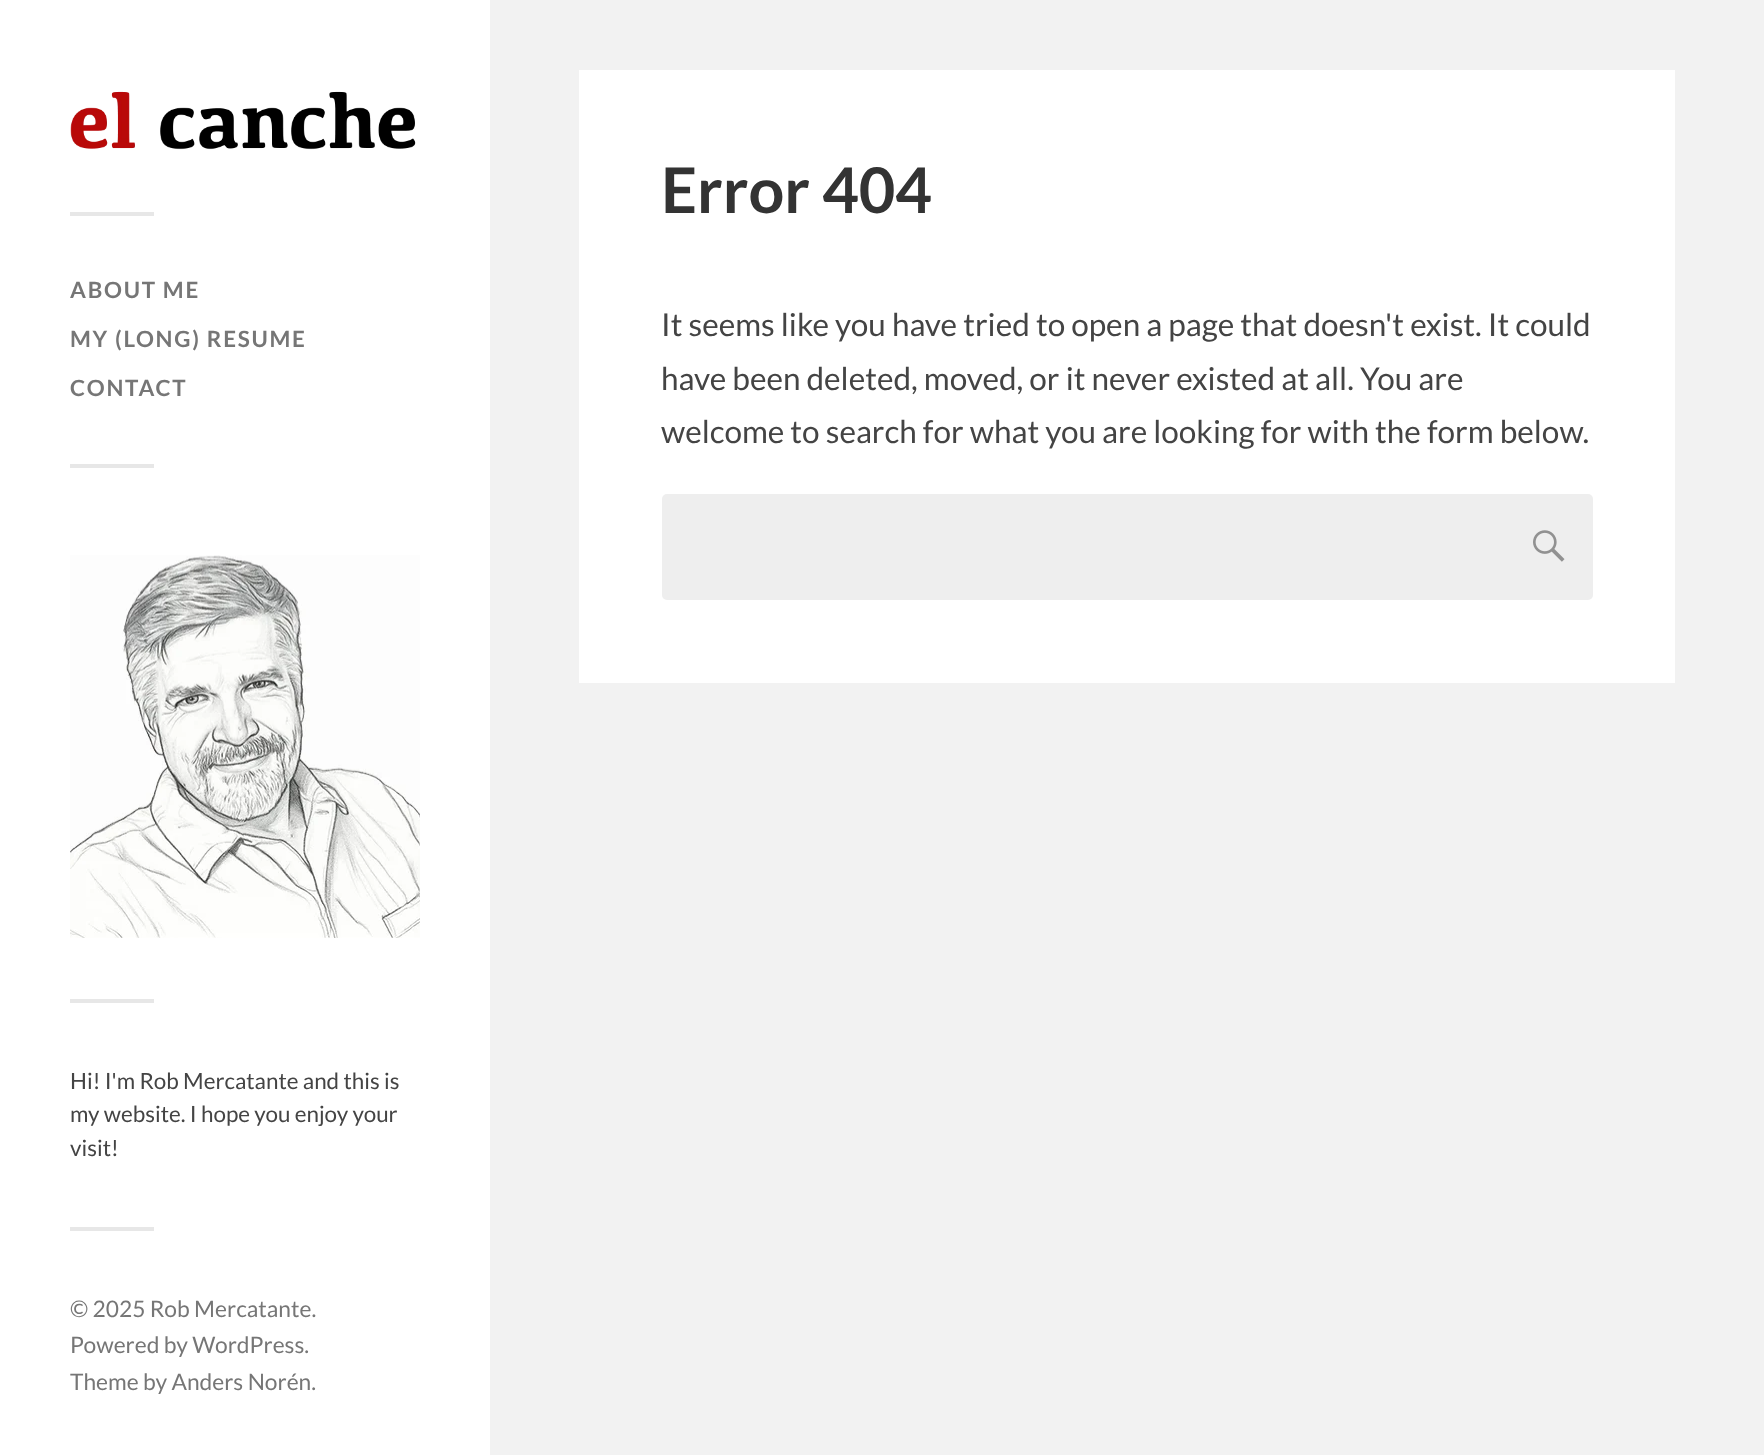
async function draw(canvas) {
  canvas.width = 1764;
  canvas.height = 1455;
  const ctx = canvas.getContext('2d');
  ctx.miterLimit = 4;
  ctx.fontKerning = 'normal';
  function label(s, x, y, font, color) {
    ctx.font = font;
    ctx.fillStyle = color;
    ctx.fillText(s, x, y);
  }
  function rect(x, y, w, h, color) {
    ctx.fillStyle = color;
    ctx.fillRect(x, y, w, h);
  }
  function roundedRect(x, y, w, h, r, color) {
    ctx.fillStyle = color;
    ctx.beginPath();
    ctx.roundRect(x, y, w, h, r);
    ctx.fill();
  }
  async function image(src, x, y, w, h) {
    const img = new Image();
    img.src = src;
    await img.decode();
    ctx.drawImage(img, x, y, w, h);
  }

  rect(0, 0, 1764, 1455, '#f2f2f2');
  rect(0, 0, 490, 1455, '#fff');
  await image('assets/img1.png', 70, 91, 346, 59);
  rect(70, 212, 84, 4, '#e7e7e7');
  ctx.letterSpacing = '1.75px';
  label('ABOUT ME', 70, 298, 'bold 22.4px Lato', '#767676');
  label('MY (LONG) RESUME', 70, 347, 'bold 22.4px Lato', '#767676');
  label('CONTACT', 70, 396, 'bold 22.4px Lato', '#767676');
  rect(70, 464, 84, 4, '#e7e7e7');
  await image('assets/img2.png', 70, 555, 350, 383);
  rect(70, 999, 84, 4, '#e7e7e7');
  ctx.letterSpacing = '0px';
  label('Hi! I\'m Rob Mercatante and this is', 70, 1089, '22.4px Lato', '#444');
  label('my website. I hope you enjoy your', 70, 1122, '22.4px Lato', '#444');
  label('visit!', 70, 1156, '22.4px Lato', '#444');
  rect(70, 1227, 84, 4, '#e7e7e7');
  label('© 2025 Rob Mercatante.', 70, 1317, '22.75px Lato', '#767676');
  label('Powered by WordPress.', 70, 1353, '22.75px Lato', '#767676');
  label('Theme by Anders Norén.', 70, 1390, '22.75px Lato', '#767676');
  rect(579, 70, 1096, 613, '#fff');
  label('Error 404', 661, 213, 'bold 63px Lato', '#333');
  label('It seems like you have tried to open a page that doesn\'t exist. It could', 661, 336, '31.5px Lato', '#444');
  label('have been deleted, moved, or it never existed at all. You are', 661, 390, '31.5px Lato', '#444');
  label('welcome to search for what you are looking for with the form below.', 661, 443, '31.5px Lato', '#444');
  roundedRect(662, 494, 931, 106, 5, '#eee');
  await image('assets/img3.png', 1533, 530, 32, 32);
}

draw(document.querySelector('canvas'));
